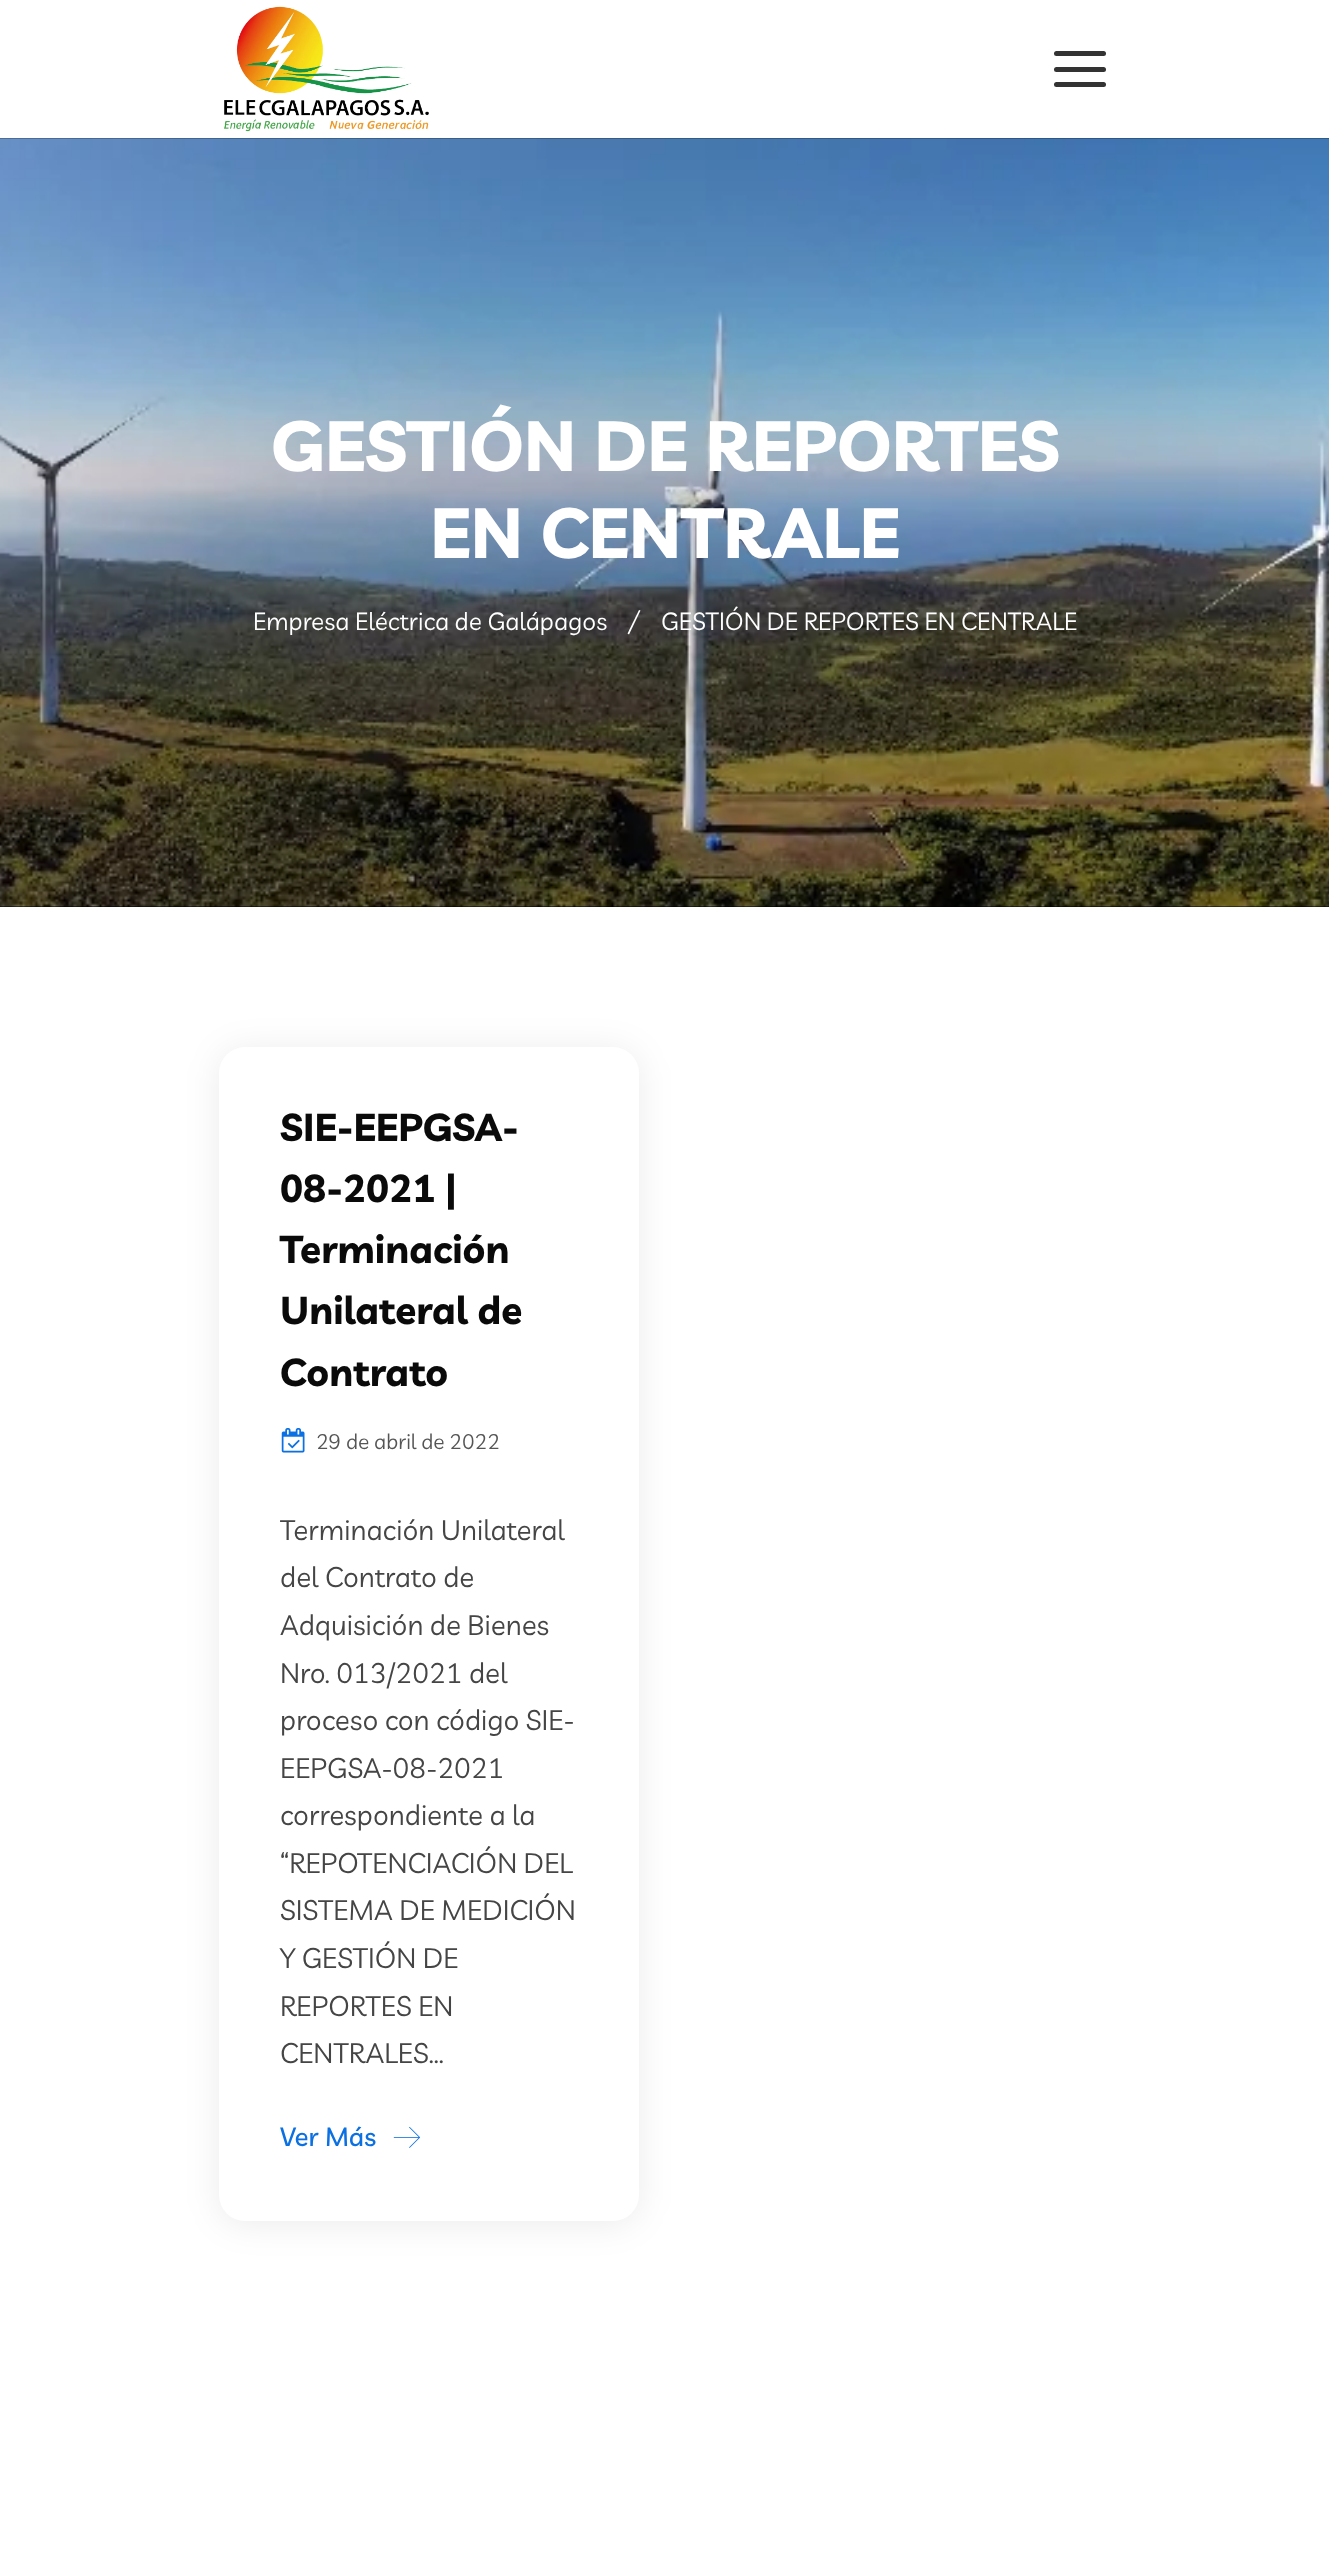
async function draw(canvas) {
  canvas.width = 1329;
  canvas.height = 2562;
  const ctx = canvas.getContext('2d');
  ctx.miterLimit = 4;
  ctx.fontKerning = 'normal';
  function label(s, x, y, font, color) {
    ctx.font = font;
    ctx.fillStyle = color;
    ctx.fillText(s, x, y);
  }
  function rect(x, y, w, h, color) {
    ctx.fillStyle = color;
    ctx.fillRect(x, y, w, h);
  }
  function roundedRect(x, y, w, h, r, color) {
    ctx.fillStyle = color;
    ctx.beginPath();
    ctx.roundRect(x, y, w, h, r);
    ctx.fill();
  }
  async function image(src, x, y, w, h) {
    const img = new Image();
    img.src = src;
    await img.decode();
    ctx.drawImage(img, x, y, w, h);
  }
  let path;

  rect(0, 0, 1329, 2562, '#fff');
  await image('assets/img1.png', 224, 6, 205, 126);
  roundedRect(1054, 51, 52, 5, 2.5, '#333');
  roundedRect(1054, 67, 52, 5, 2.5, '#333');
  roundedRect(1054, 82, 52, 5, 2.5, '#333');
  rect(0, 138, 1329, 769, '#000');
  await image('assets/img2.png', 0, 138, 1329, 769);
  label('GESTIÓN DE REPORTES', 271, 471, 'bold 70px Livvic', '#fff');
  label('EN CENTRALE', 430, 558, 'bold 70px Livvic', '#fff');
  label('Empresa Eléctrica de Galápagos', 253, 630, '24.5px Livvic', '#fff');
  path = new Path2D('M639 610L640.5 610.5L629 634.5L627.5 633.5Z');
  ctx.fill(path);
  label('GESTIÓN DE REPORTES EN CENTRALE', 661, 630, '24.5px Livvic', '#fff');
  ctx.fillStyle = '#00000014';
  ctx.filter = 'blur(17.5px)';
  ctx.beginPath();
  ctx.roundRect(219, 1050, 420, 1174, 26);
  ctx.fill();
  ctx.filter = 'none';
  roundedRect(219, 1047, 420, 1174, 26, '#fff');
  label('SIE-EEPGSA-', 280, 1141, 'bold 38.5px Livvic', '#0a0a0a');
  label('08-2021 |', 280, 1202, 'bold 38.5px Livvic', '#0a0a0a');
  label('Terminación', 280, 1263, 'bold 38.5px Livvic', '#0a0a0a');
  label('Unilateral de', 280, 1324, 'bold 38.5px Livvic', '#0a0a0a');
  label('Contrato', 280, 1386, 'bold 38.5px Livvic', '#0a0a0a');
  await image('assets/img3.png', 281, 1428, 24, 25);
  label('29 de abril de 2022', 316, 1449, '21px Livvic', '#555');
  label('Terminación Unilateral', 280, 1540, '28px Livvic', '#454545');
  label('del Contrato de', 280, 1587, '28px Livvic', '#454545');
  label('Adquisición de Bienes', 280, 1635, '28px Livvic', '#454545');
  label('Nro. 013/2021 del', 280, 1683, '28px Livvic', '#454545');
  label('proceso con código SIE-', 280, 1730, '28px Livvic', '#454545');
  label('EEPGSA-08-2021', 280, 1778, '28px Livvic', '#454545');
  label('correspondiente a la', 280, 1825, '28px Livvic', '#454545');
  label('“REPOTENCIACIÓN DEL', 280, 1873, '28px Livvic', '#454545');
  label('SISTEMA DE MEDICIÓN', 280, 1920, '28px Livvic', '#454545');
  label('Y GESTIÓN DE', 280, 1968, '28px Livvic', '#454545');
  label('REPORTES EN', 280, 2016, '28px Livvic', '#454545');
  label('CENTRALES...', 280, 2063, '28px Livvic', '#454545');
  label('Ver Más', 280, 2146, '500 26px Livvic', '#0b70e1');
  await image('assets/img4.png', 393, 2126, 27, 22);
}

draw(document.querySelector('canvas'));
